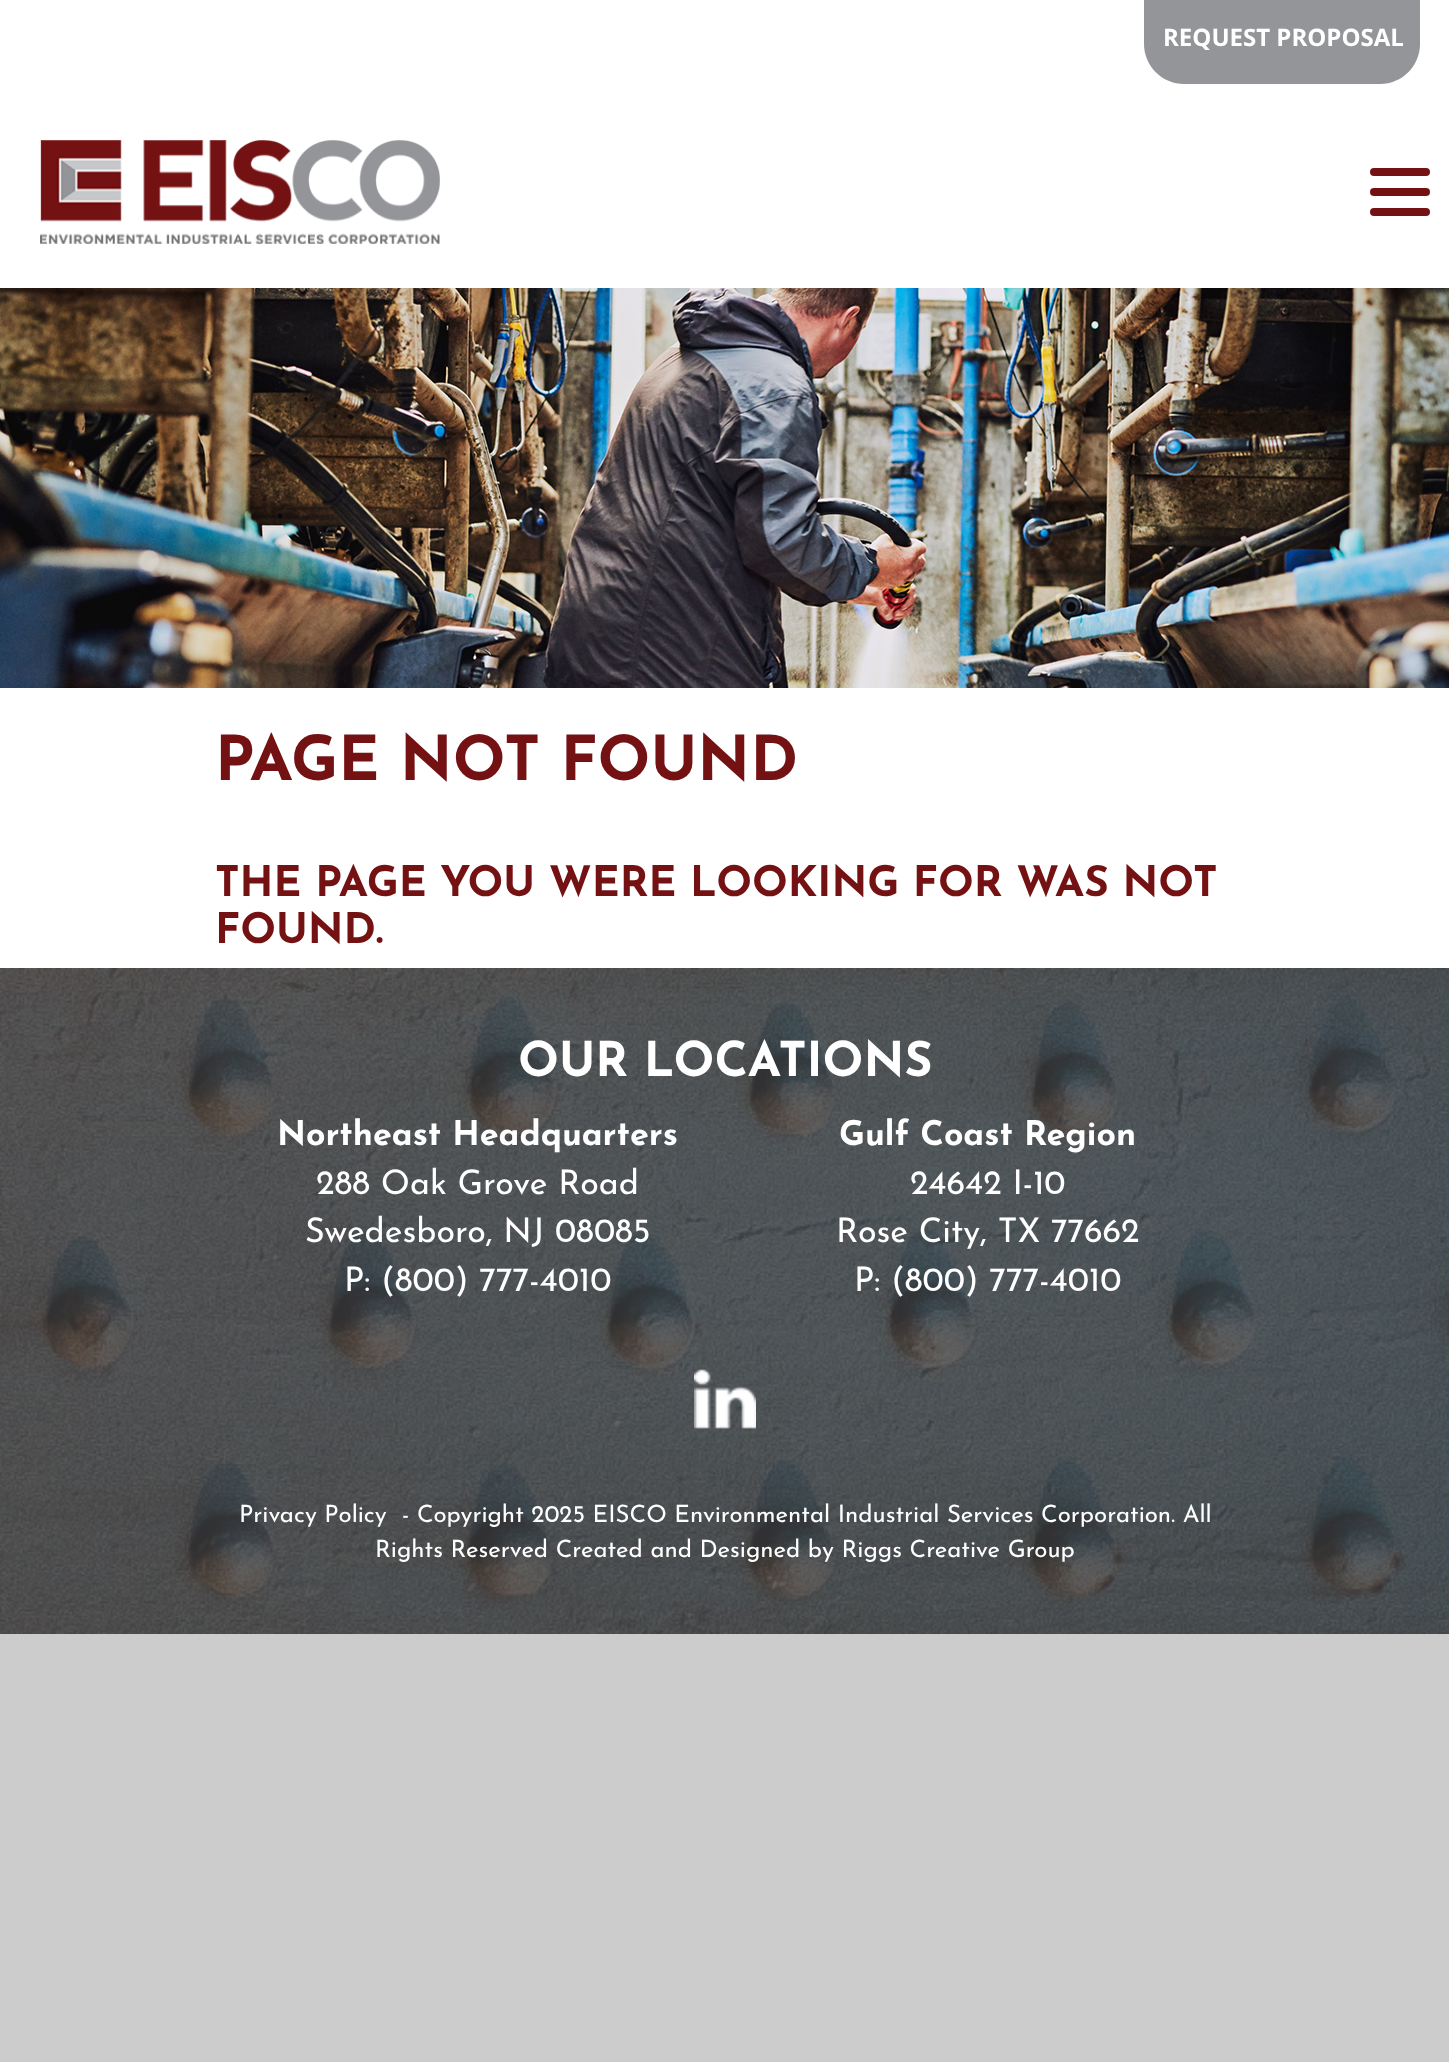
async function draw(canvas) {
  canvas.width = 1449;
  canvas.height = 2062;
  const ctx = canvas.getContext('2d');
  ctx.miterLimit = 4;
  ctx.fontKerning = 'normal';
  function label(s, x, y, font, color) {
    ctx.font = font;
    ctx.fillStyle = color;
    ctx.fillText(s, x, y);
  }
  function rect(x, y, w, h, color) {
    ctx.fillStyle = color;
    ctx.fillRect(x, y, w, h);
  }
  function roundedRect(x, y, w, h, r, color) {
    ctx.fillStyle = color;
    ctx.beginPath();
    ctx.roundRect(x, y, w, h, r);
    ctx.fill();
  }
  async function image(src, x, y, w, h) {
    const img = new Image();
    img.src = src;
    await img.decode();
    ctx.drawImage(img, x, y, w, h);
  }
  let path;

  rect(0, 0, 1449, 2062, '#ccc');
  rect(0, 0, 1449, 288, '#fff');
  ctx.fillStyle = '#939598';
  path = new Path2D('M1144-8H1420V44C1420 66 1402 84 1380 84H1184C1162 84 1144 66 1144 44Z');
  ctx.fill(path);
  label('REQUEST PROPOSAL', 1163, 46, 'bold 24px Open Sans', '#fff');
  await image('assets/img1.png', 40, 140, 400, 104);
  rect(0, 688, 1449, 280, '#fff');
  await image('assets/img2.png', 0, 288, 1449, 400);
  label('PAGE NOT FOUND', 215, 780, 'bold 62px Josefin Sans', '#731113');
  label('THE PAGE YOU WERE LOOKING FOR WAS NOT', 215, 896, 'bold 42px Josefin Sans', '#731113');
  label('FOUND.', 215, 943, 'bold 42px Josefin Sans', '#731113');
  await image('assets/img3.png', 0, 968, 1449, 666);
  label('OUR LOCATIONS', 518, 1076, 'bold 48px Josefin Sans', '#fff');
  label('Northeast Headquarters', 277, 1145, 'bold 34px Josefin Sans', '#fff');
  label('288 Oak Grove Road', 316, 1194, '34px Josefin Sans', '#fff');
  label('Swedesboro, NJ 08085', 305, 1242, '34px Josefin Sans', '#fff');
  label('P: (800) 777-4010', 344, 1291, '34px Josefin Sans', '#fff');
  label('Gulf Coast Region', 839, 1145, 'bold 34px Josefin Sans', '#fff');
  label('24642 I-10', 910, 1194, '34px Josefin Sans', '#fff');
  label('Rose City, TX 77662', 836, 1242, '34px Josefin Sans', '#fff');
  label('P: (800) 777-4010', 854, 1291, '34px Josefin Sans', '#fff');
  await image('assets/img4.png', 694, 1369, 62, 60);
  label('Privacy Policy', 239, 1522, '24px Josefin Sans', '#fff');
  label('- Copyright 2025 EISCO Environmental Industrial Services Corporation. All', 402, 1522, '24px Josefin Sans', '#fff');
  label('Rights Reserved Created and Designed by Riggs Creative Group', 375, 1557, '24px Josefin Sans', '#fff');
  roundedRect(1370, 188, 60, 8, 4, '#731113');
  roundedRect(1370, 168, 60, 8, 4, '#731113');
  roundedRect(1370, 208, 60, 8, 4, '#731113');
}

draw(document.querySelector('canvas'));
